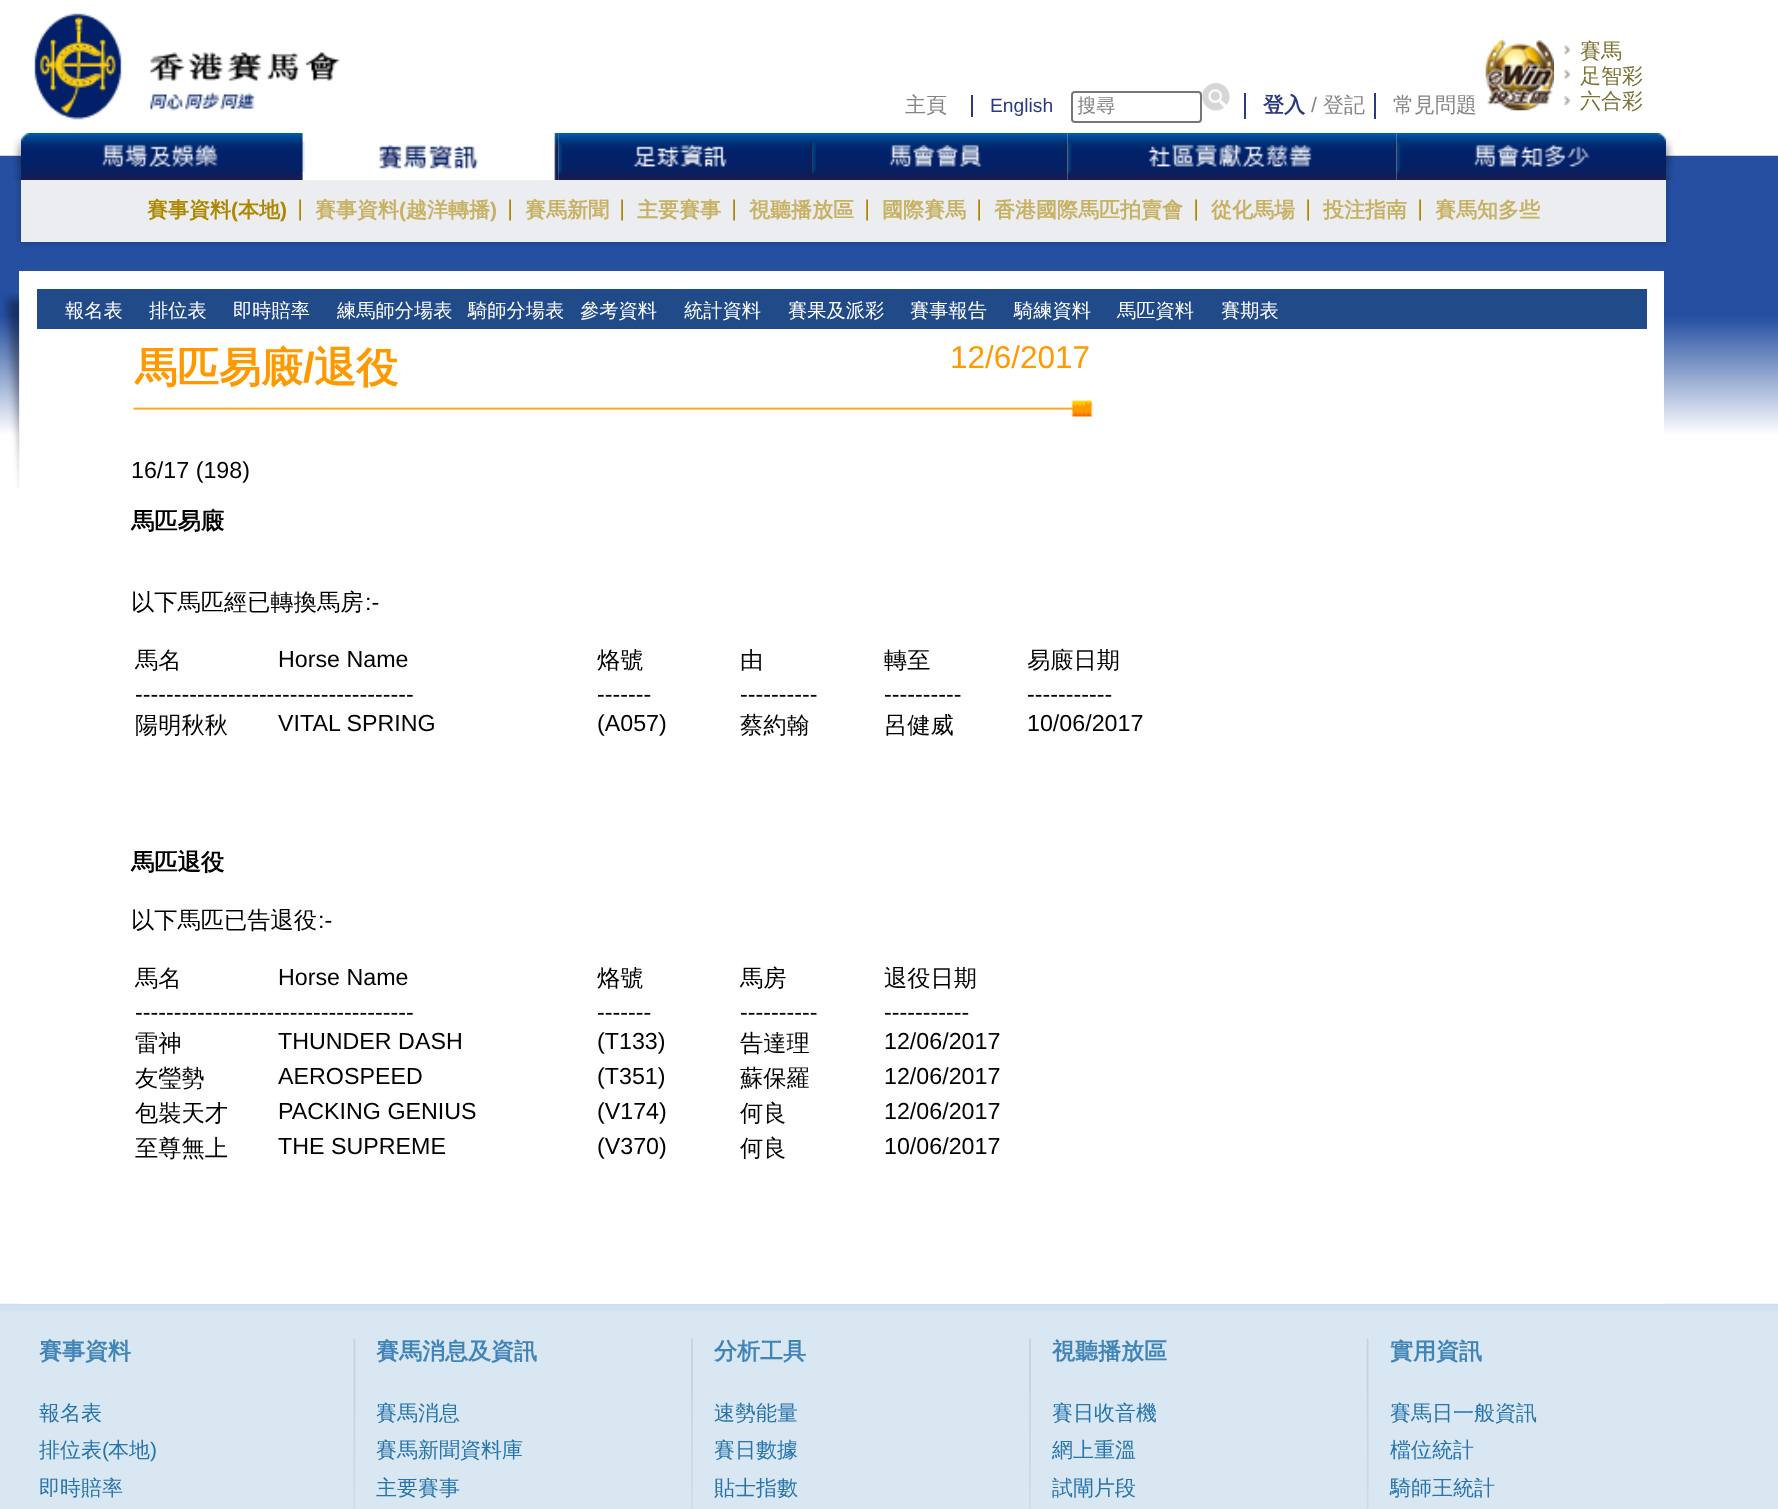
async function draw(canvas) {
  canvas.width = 1778;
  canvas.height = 1509;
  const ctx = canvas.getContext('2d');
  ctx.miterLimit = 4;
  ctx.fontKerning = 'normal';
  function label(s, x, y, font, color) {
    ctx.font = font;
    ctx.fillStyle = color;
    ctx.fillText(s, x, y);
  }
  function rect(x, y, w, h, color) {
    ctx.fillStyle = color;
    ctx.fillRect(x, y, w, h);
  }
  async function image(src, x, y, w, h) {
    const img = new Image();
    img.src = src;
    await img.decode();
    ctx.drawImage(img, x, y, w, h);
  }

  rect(0, 0, 1778, 1509, '#fff');
  await image('assets/img1.png', 0, 155, 1778, 279);
  await image('assets/img2.png', 34, 13, 306, 107);
  label('主頁', 905, 112, '500 21px WenQuanYi Zen Hei', '#848484');
  rect(971, 95, 2, 22, '#2a3981');
  label('English', 990, 112, '19.25px Liberation Sans', '#2a3981');
  ctx.beginPath();
  ctx.roundRect(1072, 92, 129, 30, 3);
  ctx.strokeStyle = '#767676';
  ctx.lineWidth = 2;
  ctx.stroke();
  ctx.save();
  ctx.beginPath();
  ctx.rect(1078, 95, 117, 24);
  ctx.clip();
  label('搜尋', 1077, 112, '500 19.25px WenQuanYi Zen Hei', '#848484');
  ctx.restore();
  await image('assets/img3.png', 1202, 83, 28, 28);
  rect(1244, 93, 2, 26, '#2a3981');
  label('登入', 1263, 112, 'bold 21px WenQuanYi Zen Hei', '#2a3981');
  label('/', 1311, 112, '21px Liberation Sans', '#848484');
  label('登記', 1323, 112, '500 21px WenQuanYi Zen Hei', '#848484');
  rect(1374, 93, 2, 26, '#2a3981');
  label('常見問題', 1393, 112, '500 21px WenQuanYi Zen Hei', '#848484');
  await image('assets/img4.png', 1485, 40, 69, 71);
  await image('assets/img5.png', 1564, 45, 6, 10);
  label('賽馬', 1580, 58, '500 21px WenQuanYi Zen Hei', '#7b7135');
  await image('assets/img6.png', 1564, 70, 6, 9);
  label('足智彩', 1580, 83, '500 21px WenQuanYi Zen Hei', '#7b7135');
  await image('assets/img7.png', 1564, 96, 6, 9);
  label('六合彩', 1580, 108, '500 21px WenQuanYi Zen Hei', '#7b7135');
  await image('assets/img8.png', 12, 136, 9, 45);
  rect(21, 155, 1645, 25, '#fff');
  await image('assets/img9.png', 21, 133, 282, 47);
  await image('assets/img10.png', 302, 133, 257, 47);
  await image('assets/img11.png', 558, 133, 254, 47);
  await image('assets/img12.png', 812, 133, 256, 47);
  await image('assets/img13.png', 1067, 133, 330, 47);
  await image('assets/img14.png', 1396, 133, 270, 47);
  await image('assets/img15.png', 1666, 136, 9, 45);
  await image('assets/img16.png', 16, 180, 5, 62);
  rect(21, 180, 1645, 62, '#ebedf0');
  label('賽事資料', 147, 217, 'bold 21px WenQuanYi Zen Hei', '#ae8701');
  label('(', 231, 217, 'bold 21px Liberation Sans', '#ae8701');
  label('本地', 238, 217, 'bold 21px WenQuanYi Zen Hei', '#ae8701');
  label(')', 280, 217, 'bold 21px Liberation Sans', '#ae8701');
  await image('assets/img17.png', 299, 199, 2, 22);
  label('賽事資料', 315, 217, 'bold 21px WenQuanYi Zen Hei', '#c7b163');
  label('(', 399, 217, 'bold 21px Liberation Sans', '#c7b163');
  label('越洋轉播', 406, 217, 'bold 21px WenQuanYi Zen Hei', '#c7b163');
  label(')', 490, 217, 'bold 21px Liberation Sans', '#c7b163');
  await image('assets/img17.png', 509, 199, 2, 22);
  label('賽馬新聞', 525, 217, 'bold 21px WenQuanYi Zen Hei', '#c7b163');
  await image('assets/img17.png', 621, 199, 2, 22);
  label('主要賽事', 637, 217, 'bold 21px WenQuanYi Zen Hei', '#c7b163');
  await image('assets/img17.png', 733, 199, 2, 22);
  label('視聽播放區', 749, 217, 'bold 21px WenQuanYi Zen Hei', '#c7b163');
  await image('assets/img17.png', 866, 199, 2, 22);
  label('國際賽馬', 882, 217, 'bold 21px WenQuanYi Zen Hei', '#c7b163');
  await image('assets/img17.png', 978, 199, 2, 22);
  label('香港國際馬匹拍賣會', 994, 217, 'bold 21px WenQuanYi Zen Hei', '#c7b163');
  await image('assets/img17.png', 1195, 199, 2, 22);
  label('從化馬場', 1211, 217, 'bold 21px WenQuanYi Zen Hei', '#c7b163');
  await image('assets/img17.png', 1307, 199, 2, 22);
  label('投注指南', 1323, 217, 'bold 21px WenQuanYi Zen Hei', '#c7b163');
  await image('assets/img17.png', 1419, 199, 2, 22);
  label('賽馬知多些', 1435, 217, 'bold 21px WenQuanYi Zen Hei', '#c7b163');
  await image('assets/img18.png', 1666, 180, 5, 62);
  await image('assets/img19.png', 21, 242, 1645, 5);
  await image('assets/img22.png', 0, 1303, 1778, 8);
  rect(19, 271, 1645, 1033, '#fff');
  await image('assets/img20.png', 2, 293, 18, 195);
  rect(37, 289, 1610, 40, '#204a88');
  label('報名表', 65, 317, '500 19.25px WenQuanYi Zen Hei', '#fff');
  label('排位表', 149, 317, '500 19.25px WenQuanYi Zen Hei', '#fff');
  label('即時賠率', 233, 317, '500 19.25px WenQuanYi Zen Hei', '#fff');
  label('練馬師分場表', 337, 317, '500 19.25px WenQuanYi Zen Hei', '#fff');
  label('騎師分場表', 468, 317, '500 19.25px WenQuanYi Zen Hei', '#fff');
  label('參考資料', 580, 317, '500 19.25px WenQuanYi Zen Hei', '#fff');
  label('統計資料', 684, 317, '500 19.25px WenQuanYi Zen Hei', '#fff');
  label('賽果及派彩', 788, 317, '500 19.25px WenQuanYi Zen Hei', '#fff');
  label('賽事報告', 910, 317, '500 19.25px WenQuanYi Zen Hei', '#fff');
  label('騎練資料', 1014, 317, '500 19.25px WenQuanYi Zen Hei', '#fff');
  label('馬匹資料', 1117, 317, '500 19.25px WenQuanYi Zen Hei', '#fff');
  label('賽期表', 1221, 317, '500 19.25px WenQuanYi Zen Hei', '#fff');
  label('馬匹易廄', 135, 382, 'bold 42px WenQuanYi Zen Hei', '#f90');
  label('/', 303, 382, 'bold 42px Liberation Sans', '#f90');
  label('退役', 314, 382, 'bold 42px WenQuanYi Zen Hei', '#f90');
  label('12/6/2017', 950, 368, '31.5px Liberation Sans', '#f90');
  await image('assets/img21.png', 132, 400, 961, 17);
  label('16/17 (198)', 131, 478, '23.25px Liberation Sans', '#000');
  label('馬匹易廄', 131, 529, 'bold 23.25px WenQuanYi Zen Hei', '#000');
  label('以下馬匹經已轉換馬房', 131, 610, '500 23.25px WenQuanYi Zen Hei', '#000');
  label(':-', 365, 610, '23.25px Liberation Sans', '#000');
  label('馬名', 135, 668, '500 23.25px WenQuanYi Zen Hei', '#000');
  label('Horse Name', 278, 667, '23.25px Liberation Sans', '#000');
  label('烙號', 597, 668, '500 23.25px WenQuanYi Zen Hei', '#000');
  label('由', 740, 668, '500 23.25px WenQuanYi Zen Hei', '#000');
  label('轉至', 884, 668, '500 23.25px WenQuanYi Zen Hei', '#000');
  label('易廄日期', 1027, 668, '500 23.25px WenQuanYi Zen Hei', '#000');
  label('------------------------------------', 135, 702, '23.25px Liberation Sans', '#000');
  label('-------', 597, 702, '23.25px Liberation Sans', '#000');
  label('----------', 740, 702, '23.25px Liberation Sans', '#000');
  label('----------', 884, 702, '23.25px Liberation Sans', '#000');
  label('-----------', 1027, 702, '23.25px Liberation Sans', '#000');
  label('陽明秋秋', 135, 733, '500 23.25px WenQuanYi Zen Hei', '#000');
  label('VITAL SPRING', 278, 731, '23.25px Liberation Sans', '#000');
  label('(A057)', 597, 731, '23.25px Liberation Sans', '#000');
  label('蔡約翰', 740, 733, '500 23.25px WenQuanYi Zen Hei', '#000');
  label('呂健威', 884, 733, '500 23.25px WenQuanYi Zen Hei', '#000');
  label('10/06/2017', 1027, 731, '23.25px Liberation Sans', '#000');
  label('馬匹退役', 131, 870, 'bold 23.25px WenQuanYi Zen Hei', '#000');
  label('以下馬匹已告退役', 131, 928, '500 23.25px WenQuanYi Zen Hei', '#000');
  label(':-', 318, 928, '23.25px Liberation Sans', '#000');
  label('馬名', 135, 986, '500 23.25px WenQuanYi Zen Hei', '#000');
  label('Horse Name', 278, 985, '23.25px Liberation Sans', '#000');
  label('烙號', 597, 986, '500 23.25px WenQuanYi Zen Hei', '#000');
  label('馬房', 740, 986, '500 23.25px WenQuanYi Zen Hei', '#000');
  label('退役日期', 884, 986, '500 23.25px WenQuanYi Zen Hei', '#000');
  label('------------------------------------', 135, 1020, '23.25px Liberation Sans', '#000');
  label('-------', 597, 1020, '23.25px Liberation Sans', '#000');
  label('----------', 740, 1020, '23.25px Liberation Sans', '#000');
  label('-----------', 884, 1020, '23.25px Liberation Sans', '#000');
  label('雷神', 135, 1051, '500 23.25px WenQuanYi Zen Hei', '#000');
  label('THUNDER DASH', 278, 1049, '23.25px Liberation Sans', '#000');
  label('(T133)', 597, 1049, '23.25px Liberation Sans', '#000');
  label('告達理', 740, 1051, '500 23.25px WenQuanYi Zen Hei', '#000');
  label('12/06/2017', 884, 1049, '23.25px Liberation Sans', '#000');
  label('友瑩勢', 135, 1086, '500 23.25px WenQuanYi Zen Hei', '#000');
  label('AEROSPEED', 278, 1084, '23.25px Liberation Sans', '#000');
  label('(T351)', 597, 1084, '23.25px Liberation Sans', '#000');
  label('蘇保羅', 740, 1086, '500 23.25px WenQuanYi Zen Hei', '#000');
  label('12/06/2017', 884, 1084, '23.25px Liberation Sans', '#000');
  label('包裝天才', 135, 1121, '500 23.25px WenQuanYi Zen Hei', '#000');
  label('PACKING GENIUS', 278, 1119, '23.25px Liberation Sans', '#000');
  label('(V174)', 597, 1119, '23.25px Liberation Sans', '#000');
  label('何良', 740, 1121, '500 23.25px WenQuanYi Zen Hei', '#000');
  label('12/06/2017', 884, 1119, '23.25px Liberation Sans', '#000');
  label('至尊無上', 135, 1156, '500 23.25px WenQuanYi Zen Hei', '#000');
  label('THE SUPREME', 278, 1154, '23.25px Liberation Sans', '#000');
  label('(V370)', 597, 1154, '23.25px Liberation Sans', '#000');
  label('何良', 740, 1156, '500 23.25px WenQuanYi Zen Hei', '#000');
  label('10/06/2017', 884, 1154, '23.25px Liberation Sans', '#000');
  rect(0, 1311, 1778, 198, '#d9e7f2');
  label('賽事資料', 39, 1359, 'bold 23px WenQuanYi Zen Hei', '#4185b8');
  label('報名表', 39, 1420, '500 21px WenQuanYi Zen Hei', '#2774ad');
  label('排位表', 39, 1457, '500 21px WenQuanYi Zen Hei', '#2774ad');
  label('(', 102, 1457, '21px Liberation Sans', '#2774ad');
  label('本地', 108, 1457, '500 21px WenQuanYi Zen Hei', '#2774ad');
  label(')', 150, 1457, '21px Liberation Sans', '#2774ad');
  label('即時賠率', 39, 1495, '500 21px WenQuanYi Zen Hei', '#2774ad');
  await image('assets/img23.png', 353, 1338, 3, 171);
  label('賽馬消息及資訊', 376, 1359, 'bold 23px WenQuanYi Zen Hei', '#4185b8');
  label('賽馬消息', 376, 1420, '500 21px WenQuanYi Zen Hei', '#2774ad');
  label('賽馬新聞資料庫', 376, 1457, '500 21px WenQuanYi Zen Hei', '#2774ad');
  label('主要賽事', 376, 1495, '500 21px WenQuanYi Zen Hei', '#2774ad');
  await image('assets/img24.png', 691, 1338, 2, 171);
  label('分析工具', 714, 1359, 'bold 23px WenQuanYi Zen Hei', '#4185b8');
  label('速勢能量', 714, 1420, '500 21px WenQuanYi Zen Hei', '#2774ad');
  label('賽日數據', 714, 1457, '500 21px WenQuanYi Zen Hei', '#2774ad');
  label('貼士指數', 714, 1495, '500 21px WenQuanYi Zen Hei', '#2774ad');
  await image('assets/img25.png', 1029, 1338, 2, 171);
  label('視聽播放區', 1052, 1359, 'bold 23px WenQuanYi Zen Hei', '#4185b8');
  label('賽日收音機', 1052, 1420, '500 21px WenQuanYi Zen Hei', '#2774ad');
  label('網上重溫', 1052, 1457, '500 21px WenQuanYi Zen Hei', '#2774ad');
  label('試閘片段', 1052, 1495, '500 21px WenQuanYi Zen Hei', '#2774ad');
  await image('assets/img26.png', 1366, 1338, 3, 171);
  label('實用資訊', 1390, 1359, 'bold 23px WenQuanYi Zen Hei', '#4185b8');
  label('賽馬日一般資訊', 1390, 1420, '500 21px WenQuanYi Zen Hei', '#2774ad');
  label('檔位統計', 1390, 1457, '500 21px WenQuanYi Zen Hei', '#2774ad');
  label('騎師王統計', 1390, 1495, '500 21px WenQuanYi Zen Hei', '#2774ad');
}

draw(document.querySelector('canvas'));
